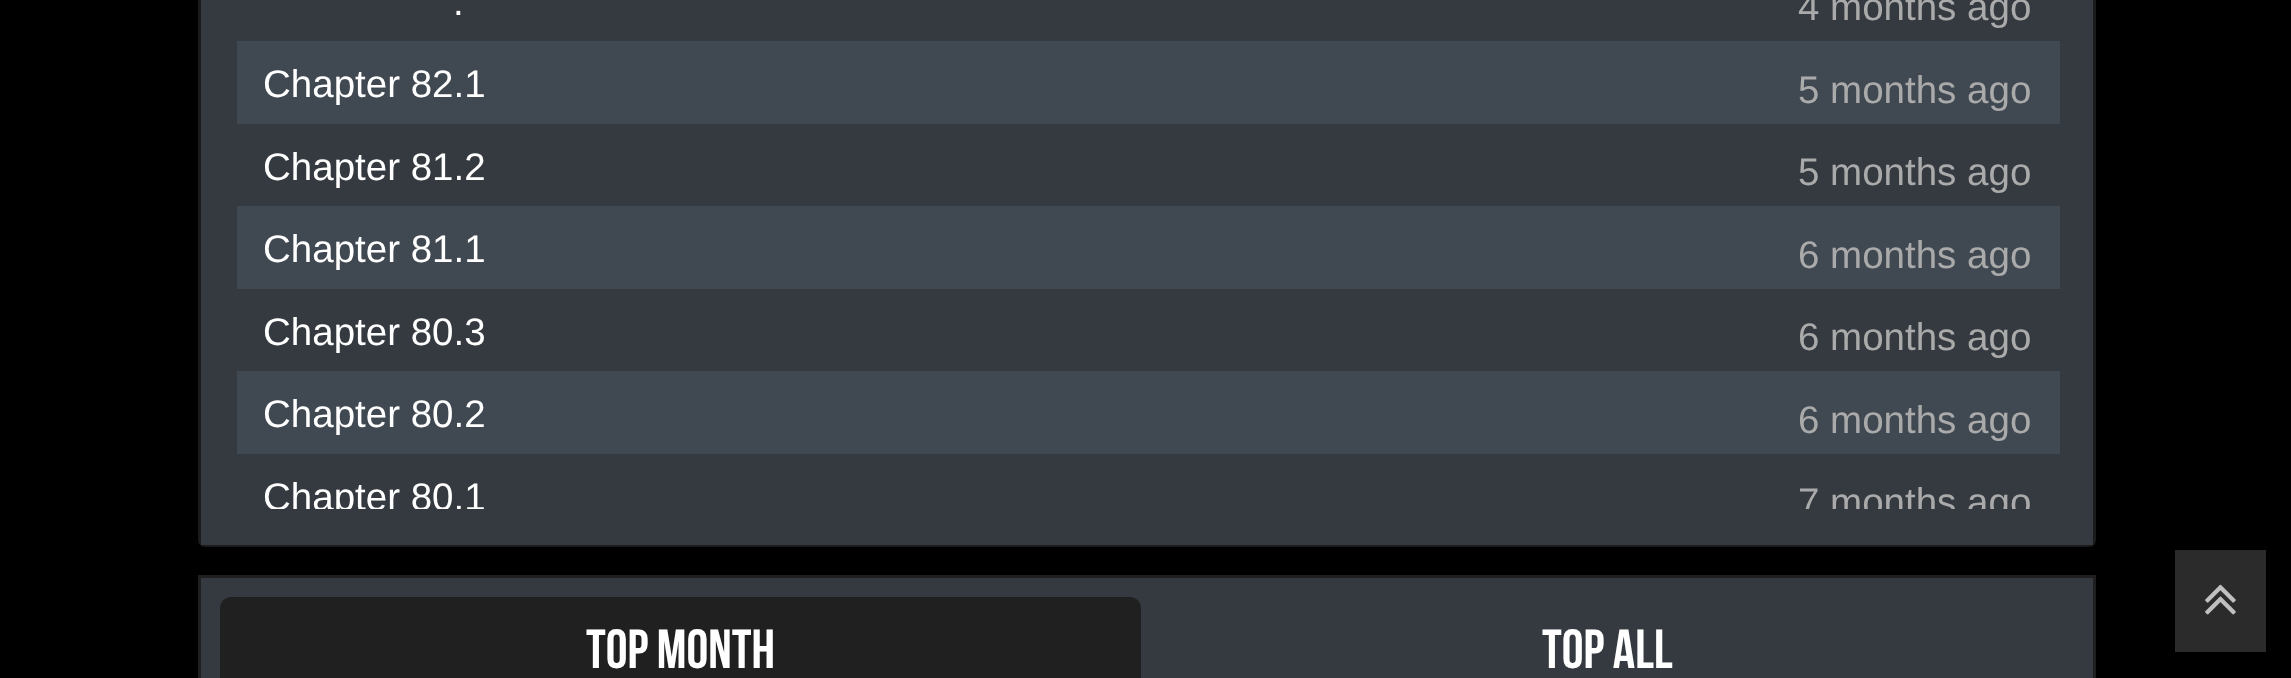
async function draw(canvas) {
  canvas.width = 2291;
  canvas.height = 678;
  const ctx = canvas.getContext('2d');
  ctx.miterLimit = 4;
  ctx.fontKerning = 'normal';
  function label(s, x, y, font, color) {
    ctx.font = font;
    ctx.fillStyle = color;
    ctx.fillText(s, x, y);
  }
  function rect(x, y, w, h, color) {
    ctx.fillStyle = color;
    ctx.fillRect(x, y, w, h);
  }
  function roundedRect(x, y, w, h, r, color) {
    ctx.fillStyle = color;
    ctx.beginPath();
    ctx.roundRect(x, y, w, h, r);
    ctx.fill();
  }
  async function image(src, x, y, w, h) {
    const img = new Image();
    img.src = src;
    await img.decode();
    ctx.drawImage(img, x, y, w, h);
  }
  let path;

  rect(0, 0, 2291, 678, '#000');
  roundedRect(198, -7, 1898, 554, 7, '#1f1f1f');
  ctx.beginPath();
  ctx.roundRect(199.5, -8.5, 1895, 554, 5.5);
  ctx.strokeStyle = '#0000001f';
  ctx.lineWidth = 3;
  ctx.stroke();
  rect(201, 0, 1892, 545, '#343a40');
  label('.', 453, 15, '38.5px Liberation Sans', '#fff');
  label('4 months ago', 1798, 20, '38.5px Liberation Sans', '#aaa');
  rect(237, 41, 1823, 83, '#404952');
  label('Chapter 82.1', 263, 97, '38.5px Liberation Sans', '#fff');
  label('5 months ago', 1798, 103, '38.5px Liberation Sans', '#aaa');
  label('Chapter 81.2', 263, 180, '38.5px Liberation Sans', '#fff');
  label('5 months ago', 1798, 185, '38.5px Liberation Sans', '#aaa');
  rect(237, 206, 1823, 83, '#404952');
  label('Chapter 81.1', 263, 262, '38.5px Liberation Sans', '#fff');
  label('6 months ago', 1798, 268, '38.5px Liberation Sans', '#aaa');
  label('Chapter 80.3', 263, 345, '38.5px Liberation Sans', '#fff');
  label('6 months ago', 1798, 350, '38.5px Liberation Sans', '#aaa');
  rect(237, 371, 1823, 83, '#404952');
  label('Chapter 80.2', 263, 427, '38.5px Liberation Sans', '#fff');
  label('6 months ago', 1798, 433, '38.5px Liberation Sans', '#aaa');
  ctx.save();
  ctx.beginPath();
  ctx.rect(264, 468, 1768, 41);
  ctx.clip();
  label('Chapter 80.1', 263, 510, '38.5px Liberation Sans', '#fff');
  ctx.restore();
  ctx.save();
  ctx.beginPath();
  ctx.rect(237, 0, 1823, 509);
  ctx.clip();
  label('7 months ago', 1798, 515, '38.5px Liberation Sans', '#aaa');
  ctx.restore();
  ctx.fillStyle = '#343a40';
  ctx.beginPath();
  ctx.rect(199.5, 576.5, 1895, 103);
  ctx.fill();
  ctx.strokeStyle = '#1f1f1f';
  ctx.stroke();
  ctx.fillStyle = '#202020';
  path = new Path2D('M231 597H1130C1136 597 1141 602 1141 608V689H220V608C220 602 225 597 231 597Z');
  ctx.fill(path);
  label('top month', 586, 668, '55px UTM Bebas', '#fff');
  label('top all', 1542, 668, '55px UTM Bebas', '#fff');
  rect(2175, 550, 91, 102, '#2b2b2b');
  await image('assets/img1.png', 2205, 584, 31, 31);
  await image('assets/img2.png', 2205, 584, 31, 31);
}

draw(document.querySelector('canvas'));
